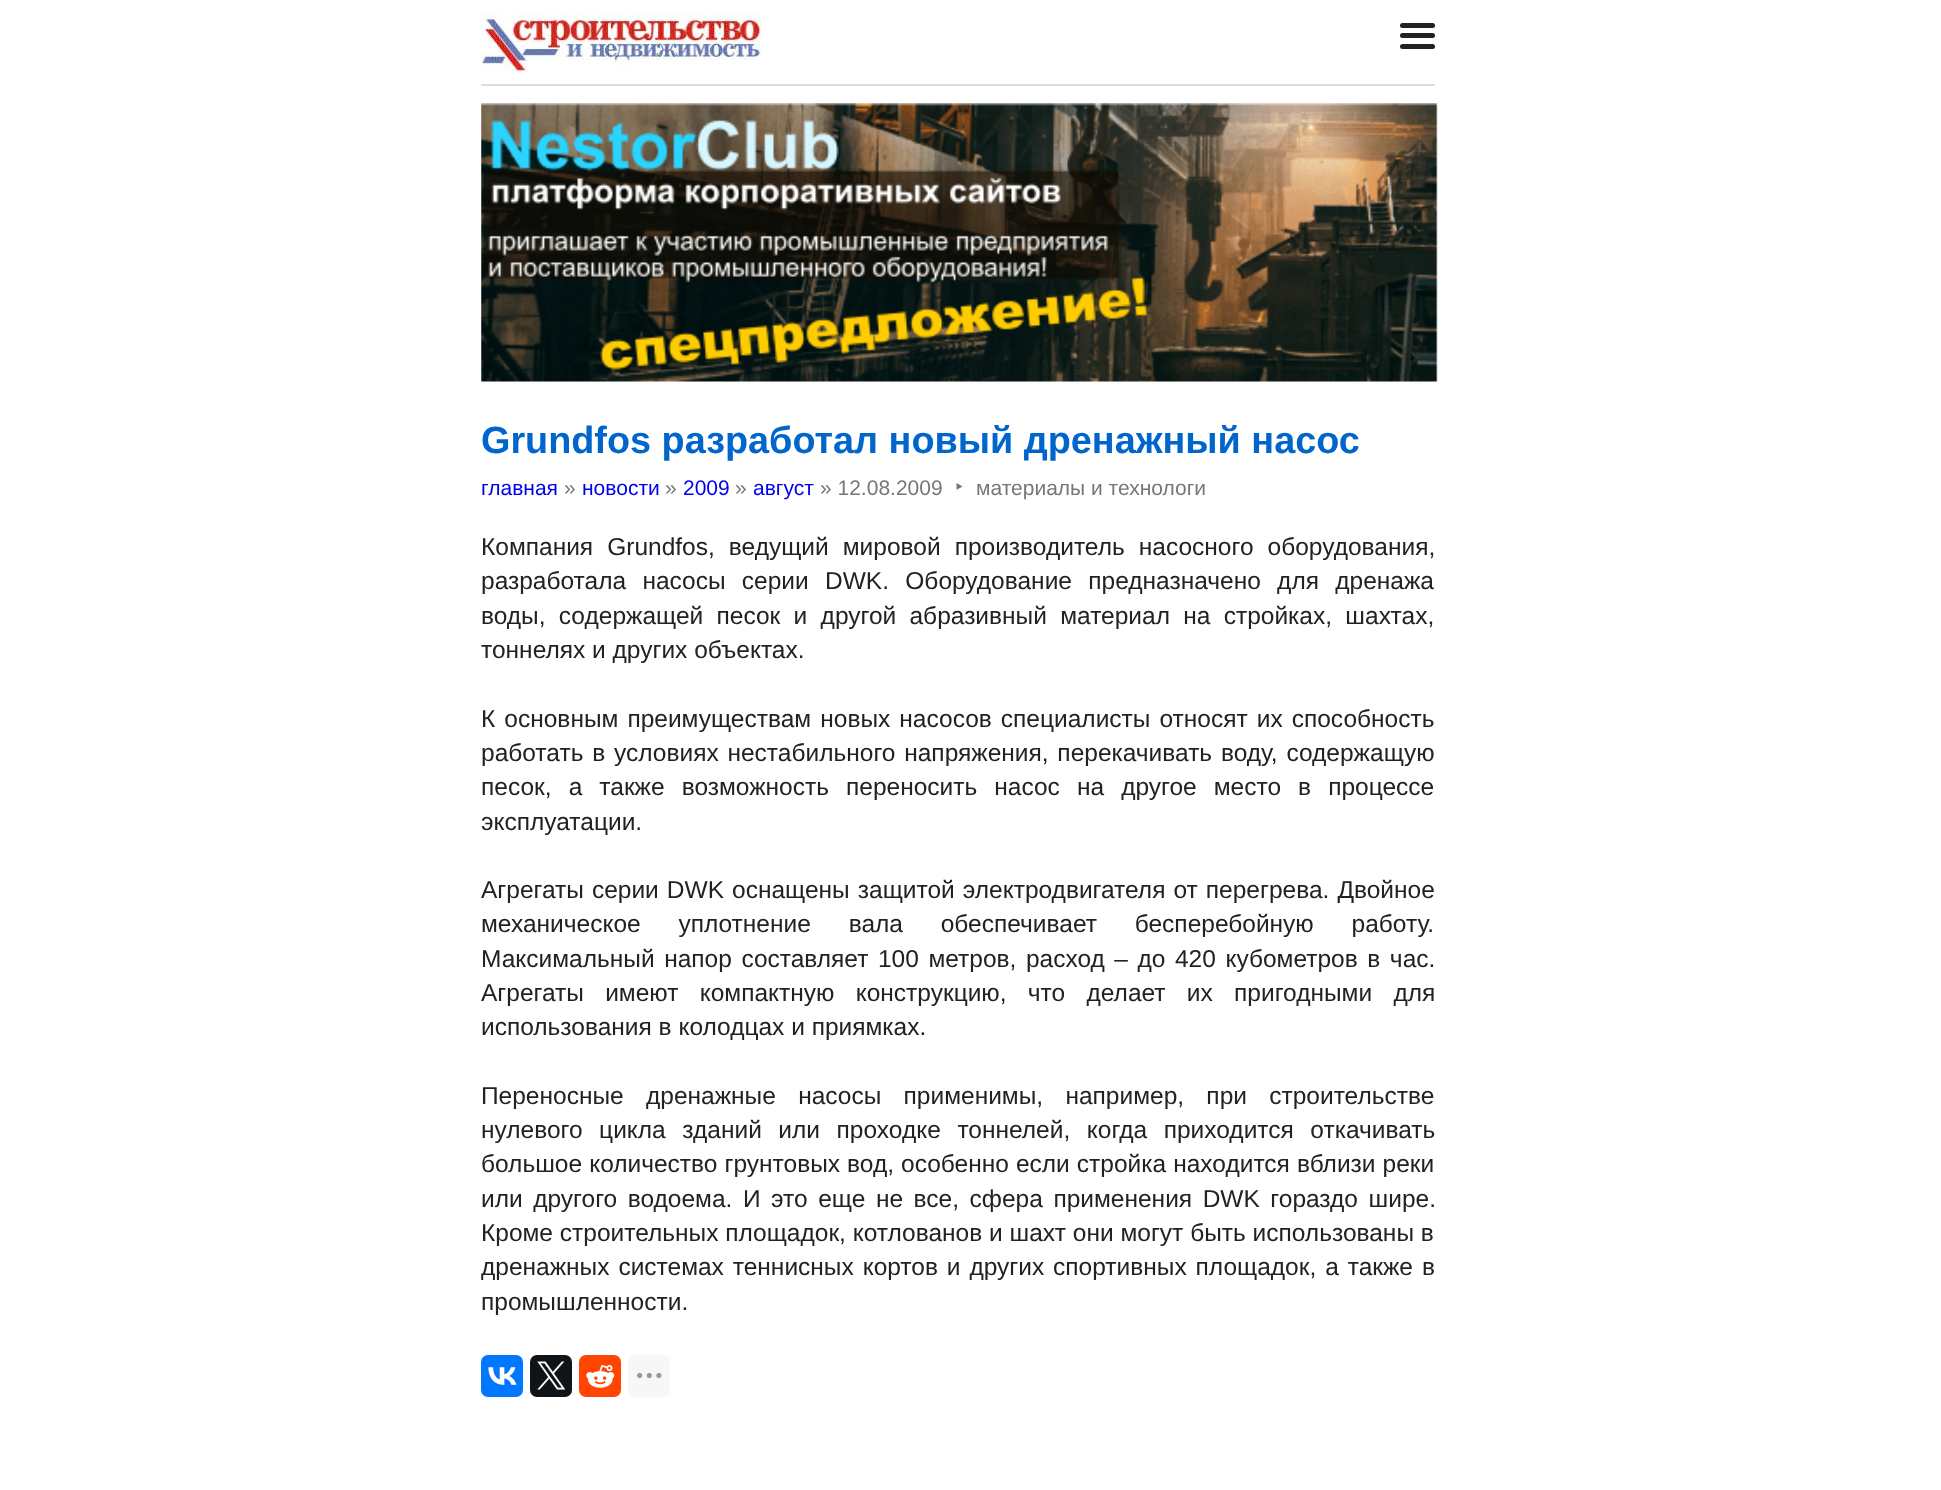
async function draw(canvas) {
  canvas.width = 1941;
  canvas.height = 1490;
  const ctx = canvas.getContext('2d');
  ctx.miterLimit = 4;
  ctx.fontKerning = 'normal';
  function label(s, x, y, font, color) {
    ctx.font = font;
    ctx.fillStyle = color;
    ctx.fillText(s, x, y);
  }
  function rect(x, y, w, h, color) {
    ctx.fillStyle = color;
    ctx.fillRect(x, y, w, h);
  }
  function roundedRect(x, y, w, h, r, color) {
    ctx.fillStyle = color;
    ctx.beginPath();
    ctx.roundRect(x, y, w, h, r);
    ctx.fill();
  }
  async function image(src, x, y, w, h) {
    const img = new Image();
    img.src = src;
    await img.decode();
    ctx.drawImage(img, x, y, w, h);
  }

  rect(0, 0, 1941, 1490, '#fff');
  rect(481, 84, 954, 2, '#ddd');
  await image('assets/img1.png', 481, 12, 281, 60);
  roundedRect(1400, 23, 35, 5, 2.5, '#222');
  roundedRect(1400, 33, 35, 5, 2.5, '#222');
  roundedRect(1400, 44, 35, 5, 2.5, '#222');
  await image('assets/img2.png', 481, 103, 957, 279);
  label('Grundfos разработал новый дренажный насос', 481, 453, 'bold 37.8px Liberation Sans', '#06c');
  label('главная', 481, 495, '21px Liberation Sans', '#00e');
  label('»', 564, 495, '21px Liberation Sans', '#777');
  label('новости', 582, 495, '21px Liberation Sans', '#00e');
  label('»', 665, 495, '21px Liberation Sans', '#777');
  label('2009', 683, 495, '21px Liberation Sans', '#00e');
  label('»', 735, 495, '21px Liberation Sans', '#777');
  label('август', 753, 495, '21px Liberation Sans', '#00e');
  label('» 12.08.2009', 820, 495, '21px Liberation Sans', '#777');
  label('‣', 955, 495, '23px Noto Sans', '#777');
  label('материалы и технологи', 976, 495, '21px Liberation Sans', '#777');
  ctx.wordSpacing = '7.25px';
  label('Компания Grundfos, ведущий мировой производитель насосного оборудования,', 481, 555, '24.5px Liberation Sans', '#222');
  ctx.wordSpacing = '9.5px';
  label('разработала насосы серии DWK. Оборудование предназначено для дренажа', 481, 589, '24.5px Liberation Sans', '#222');
  ctx.wordSpacing = '6.5px';
  label('воды, содержащей песок и другой абразивный материал на стройках, шахтах,', 481, 624, '24.5px Liberation Sans', '#222');
  ctx.wordSpacing = '0px';
  label('тоннелях и других объектах.', 481, 658, '24.5px Liberation Sans', '#222');
  ctx.wordSpacing = '2.25px';
  label('К основным преимуществам новых насосов специалисты относят их способность', 481, 727, '24.5px Liberation Sans', '#222');
  ctx.wordSpacing = '2px';
  label('работать в условиях нестабильного напряжения, перекачивать воду, содержащую', 481, 761, '24.5px Liberation Sans', '#222');
  ctx.wordSpacing = '10.25px';
  label('песок, а также возможность переносить насос на другое место в процессе', 481, 795, '24.5px Liberation Sans', '#222');
  ctx.wordSpacing = '0px';
  label('эксплуатации.', 481, 830, '24.5px Liberation Sans', '#222');
  ctx.wordSpacing = '1.25px';
  label('Агрегаты серии DWK оснащены защитой электродвигателя от перегрева. Двойное', 481, 898, '24.5px Liberation Sans', '#222');
  ctx.wordSpacing = '31px';
  label('механическое уплотнение вала обеспечивает бесперебойную работу.', 481, 932, '24.5px Liberation Sans', '#222');
  ctx.wordSpacing = '2.75px';
  label('Максимальный напор составляет 100 метров, расход – до 420 кубометров в час.', 481, 967, '24.5px Liberation Sans', '#222');
  ctx.wordSpacing = '14.5px';
  label('Агрегаты имеют компактную конструкцию, что делает их пригодными для', 481, 1001, '24.5px Liberation Sans', '#222');
  ctx.wordSpacing = '0px';
  label('использования в колодцах и приямках.', 481, 1035, '24.5px Liberation Sans', '#222');
  ctx.wordSpacing = '15.5px';
  label('Переносные дренажные насосы применимы, например, при строительстве', 481, 1104, '24.5px Liberation Sans', '#222');
  ctx.wordSpacing = '9.75px';
  label('нулевого цикла зданий или проходке тоннелей, когда приходится откачивать', 481, 1138, '24.5px Liberation Sans', '#222');
  ctx.wordSpacing = '0.25px';
  label('большое количество грунтовых вод, особенно если стройка находится вблизи реки', 481, 1172, '24.5px Liberation Sans', '#222');
  ctx.wordSpacing = '3.75px';
  label('или другого водоема. И это еще не все, сфера применения DWK гораздо шире.', 481, 1207, '24.5px Liberation Sans', '#222');
  ctx.wordSpacing = '0px';
  label('Кроме строительных площадок, котлованов и шахт они могут быть использованы в', 481, 1241, '24.5px Liberation Sans', '#222');
  ctx.wordSpacing = '2.1px';
  label('дренажных системах теннисных кортов и других спортивных площадок, а также в', 481, 1275, '24.5px Liberation Sans', '#222');
  ctx.wordSpacing = '0px';
  label('промышленности.', 481, 1310, '24.5px Liberation Sans', '#222');
  roundedRect(481, 1355, 42, 42, 7, '#07f');
  await image('assets/img3.png', 488, 1367, 29, 18);
  roundedRect(530, 1355, 42, 42, 7, '#0f1419');
  await image('assets/img4.png', 537, 1361, 29, 29);
  roundedRect(579, 1355, 42, 42, 7, '#ff4500');
  await image('assets/img5.png', 586, 1365, 29, 23);
  roundedRect(628, 1355, 42, 42, 7, '#f7f7f7');
  await image('assets/img6.png', 637, 1372, 25, 7);
}

draw(document.querySelector('canvas'));
